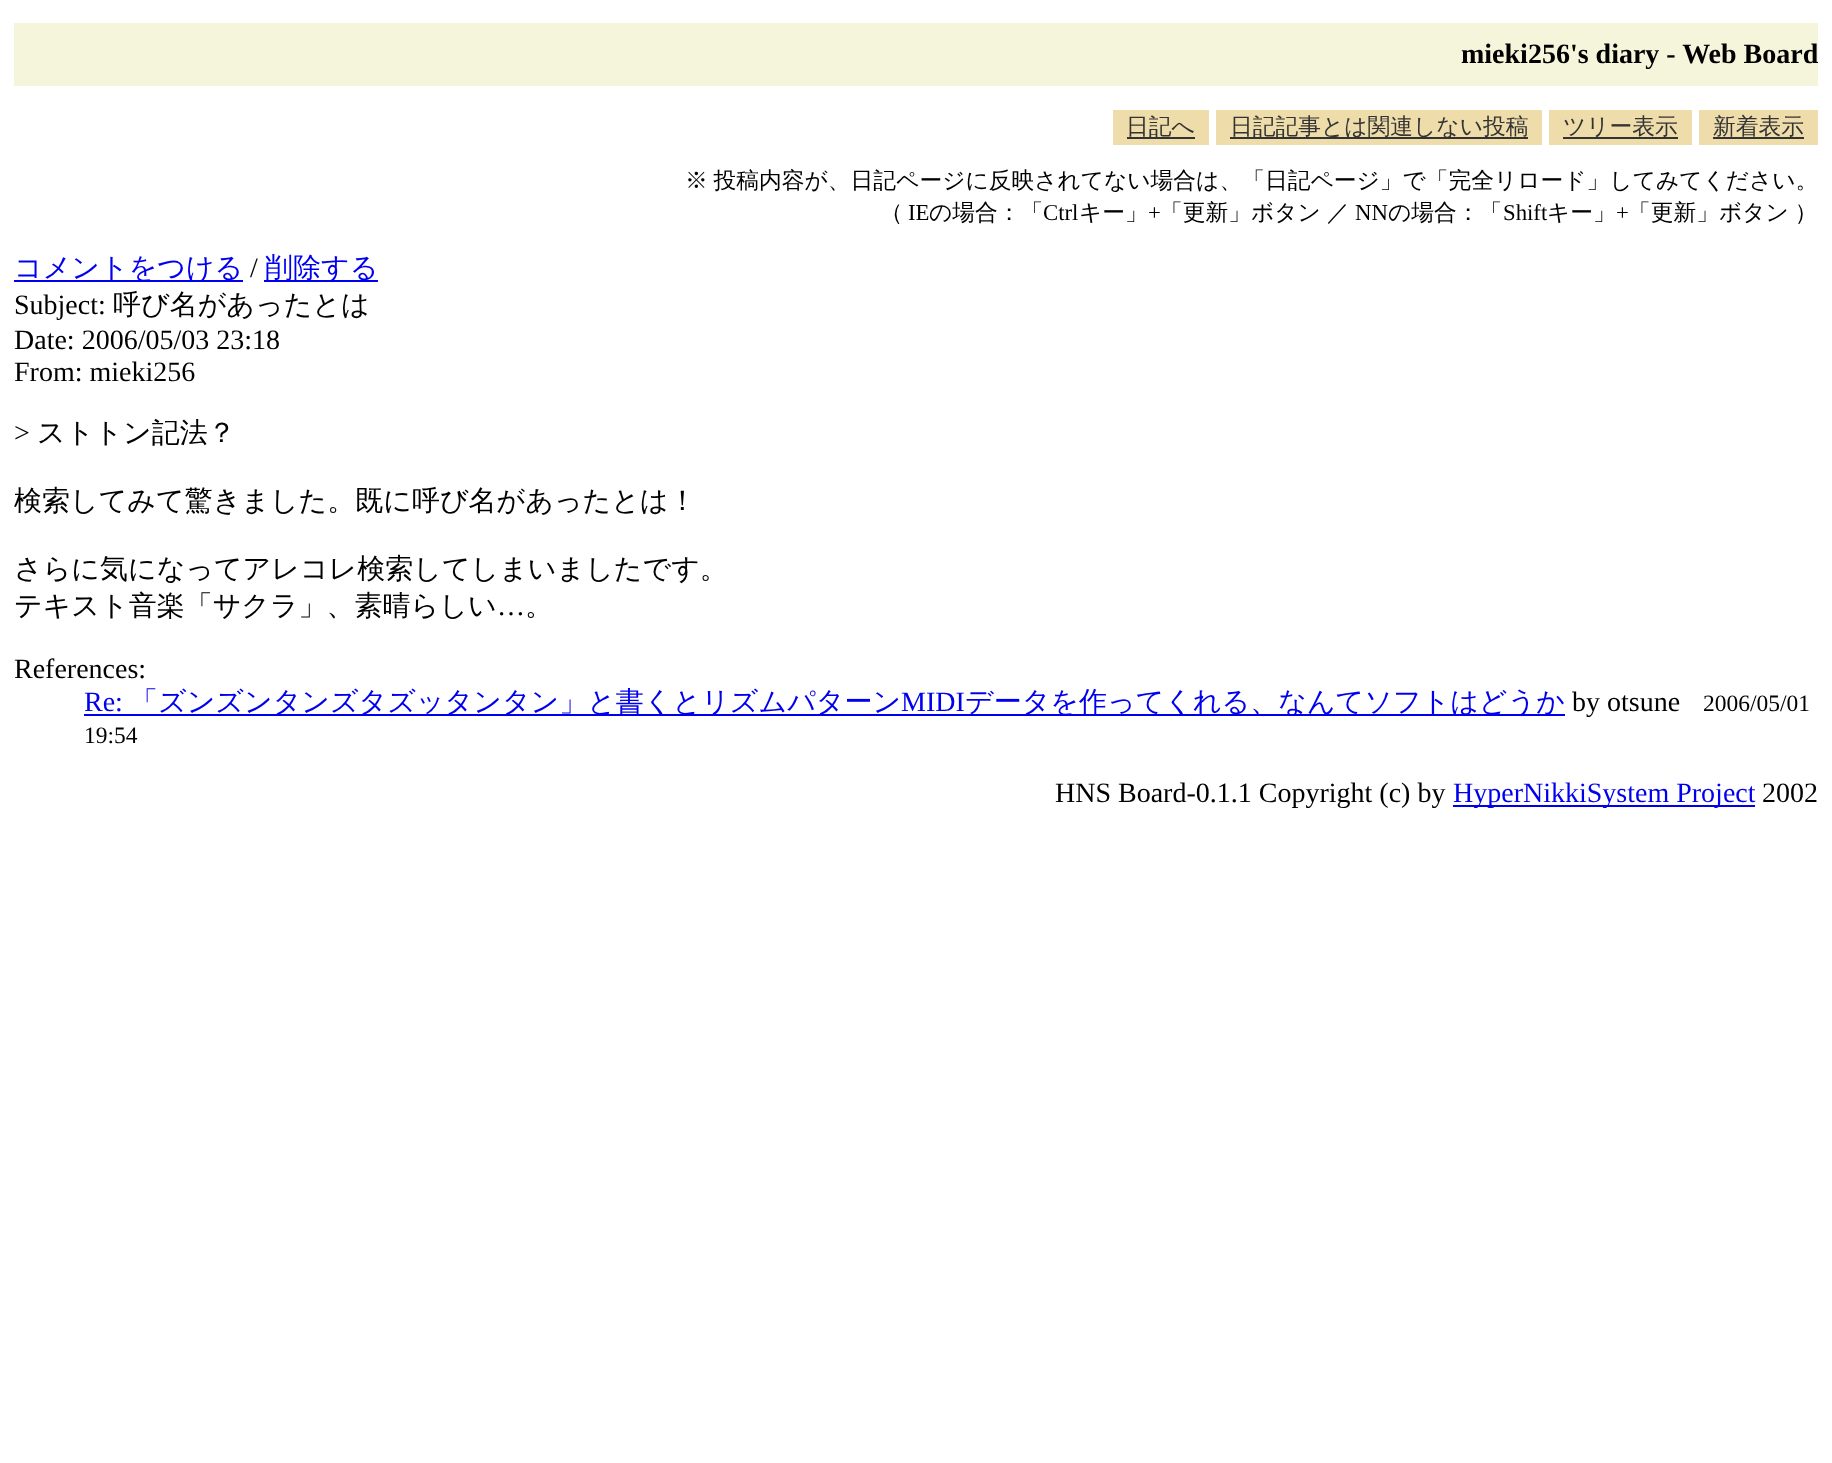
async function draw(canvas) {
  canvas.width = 1832;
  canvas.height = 1463;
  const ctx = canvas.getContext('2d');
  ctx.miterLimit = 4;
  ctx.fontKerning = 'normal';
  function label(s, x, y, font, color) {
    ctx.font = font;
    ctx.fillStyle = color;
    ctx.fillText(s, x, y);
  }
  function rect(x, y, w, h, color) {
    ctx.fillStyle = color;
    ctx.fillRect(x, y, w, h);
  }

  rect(0, 0, 1832, 1463, '#fff');
  rect(14, 23, 1804, 63, '#f5f5dc');
  label('mieki256\'s diary - Web Board', 1461, 63, 'bold 28px Liberation Serif', '#000');
  rect(1113, 110, 96, 35, '#eda');
  label('日記へ', 1126, 134, '500 22.75px WenQuanYi Zen Hei', '#333');
  rect(1127, 137, 68, 2, '#333');
  rect(1216, 110, 326, 35, '#eda');
  rect(1230, 137, 298, 2, '#333');
  label('日記記事とは関連しない投稿', 1230, 134, '500 22.75px WenQuanYi Zen Hei', '#333');
  rect(1549, 110, 143, 35, '#eda');
  rect(1563, 137, 115, 2, '#333');
  label('ツリー表示', 1563, 134, '500 22.75px WenQuanYi Zen Hei', '#333');
  rect(1699, 110, 119, 35, '#eda');
  label('新着表示', 1713, 134, '500 22.75px WenQuanYi Zen Hei', '#333');
  rect(1713, 137, 91, 2, '#333');
  ctx.wordSpacing = '-1px';
  label('※ 投稿内容が、日記ページに反映されてない場合は、「日記ページ」で「完全リロード」してみてください。', 685, 188, '500 22.75px WenQuanYi Zen Hei', '#000');
  ctx.wordSpacing = '0px';
  label('（', 880, 220, '500 22.75px WenQuanYi Zen Hei', '#000');
  label('IE', 908, 220, '22.75px Liberation Serif', '#000');
  label('の場合：「', 929, 220, '500 22.75px WenQuanYi Zen Hei', '#000');
  label('Ctrl', 1043, 220, '22.75px Liberation Serif', '#000');
  label('キー」', 1079, 220, '500 22.75px WenQuanYi Zen Hei', '#000');
  label('+', 1148, 220, '22.75px Liberation Serif', '#000');
  ctx.wordSpacing = '-1px';
  label('「更新」ボタン ／', 1160, 220, '500 22.75px WenQuanYi Zen Hei', '#000');
  ctx.wordSpacing = '0px';
  label('NN', 1355, 220, '22.75px Liberation Serif', '#000');
  label('の場合：「', 1388, 220, '500 22.75px WenQuanYi Zen Hei', '#000');
  label('Shift', 1503, 220, '22.75px Liberation Serif', '#000');
  label('キー」', 1547, 220, '500 22.75px WenQuanYi Zen Hei', '#000');
  label('+', 1616, 220, '22.75px Liberation Serif', '#000');
  ctx.wordSpacing = '-1px';
  label('「更新」ボタン ）', 1628, 220, '500 22.75px WenQuanYi Zen Hei', '#000');
  rect(14, 280, 229, 2, '#00e');
  ctx.wordSpacing = '0px';
  label('コメントをつける', 14, 277, '500 28px WenQuanYi Zen Hei', '#00e');
  label('/', 250, 277, '28px Liberation Serif', '#000');
  rect(264, 280, 114, 2, '#00e');
  label('削除する', 265, 277, '500 28px WenQuanYi Zen Hei', '#00e');
  label('Subject:', 14, 314, '28px Liberation Serif', '#000');
  label('呼び名があったとは', 113, 314, '500 28px WenQuanYi Zen Hei', '#000');
  label('Date: 2006/05/03 23:18', 14, 349, '28px Liberation Serif', '#000');
  label('From: mieki256', 14, 381, '28px Liberation Serif', '#000');
  label('>', 14, 442, '28px Liberation Serif', '#000');
  label('ストトン記法？', 37, 442, '500 28px WenQuanYi Zen Hei', '#000');
  label('検索してみて驚きました。既に呼び名があったとは！', 14, 510, '500 28px WenQuanYi Zen Hei', '#000');
  label('さらに気になってアレコレ検索してしまいましたです。', 14, 578, '500 28px WenQuanYi Zen Hei', '#000');
  label('テキスト音楽「サクラ」、素晴らしい', 14, 615, '500 28px WenQuanYi Zen Hei', '#000');
  label('…', 497, 615, '28px Liberation Serif', '#000');
  label('。', 525, 615, '500 28px WenQuanYi Zen Hei', '#000');
  label('References:', 14, 678, '28px Liberation Serif', '#000');
  label('Re:', 84, 711, '28px Liberation Serif', '#00e');
  rect(84, 714, 1481, 2, '#00e');
  label('「ズンズンタンズタズッタンタン」と書くとリズムパターン', 130, 711, '500 28px WenQuanYi Zen Hei', '#00e');
  label('MIDI', 901, 711, '28px Liberation Serif', '#00e');
  label('データを作ってくれる、なんてソフトはどうか', 965, 711, '500 28px WenQuanYi Zen Hei', '#00e');
  label('by otsune', 1572, 711, '28px Liberation Serif', '#000');
  label('2006/05/01', 1703, 711, '23.5px Liberation Serif', '#000');
  label('19:54', 84, 743, '23.5px Liberation Serif', '#000');
  label('HNS Board-0.1.1 Copyright (c) by', 1055, 802, '28px Liberation Serif', '#000');
  rect(1453, 805, 302, 2, '#00e');
  label('HyperNikkiSystem Project', 1453, 802, '28px Liberation Serif', '#00e');
  label('2002', 1762, 802, '28px Liberation Serif', '#000');
}

draw(document.querySelector('canvas'));
